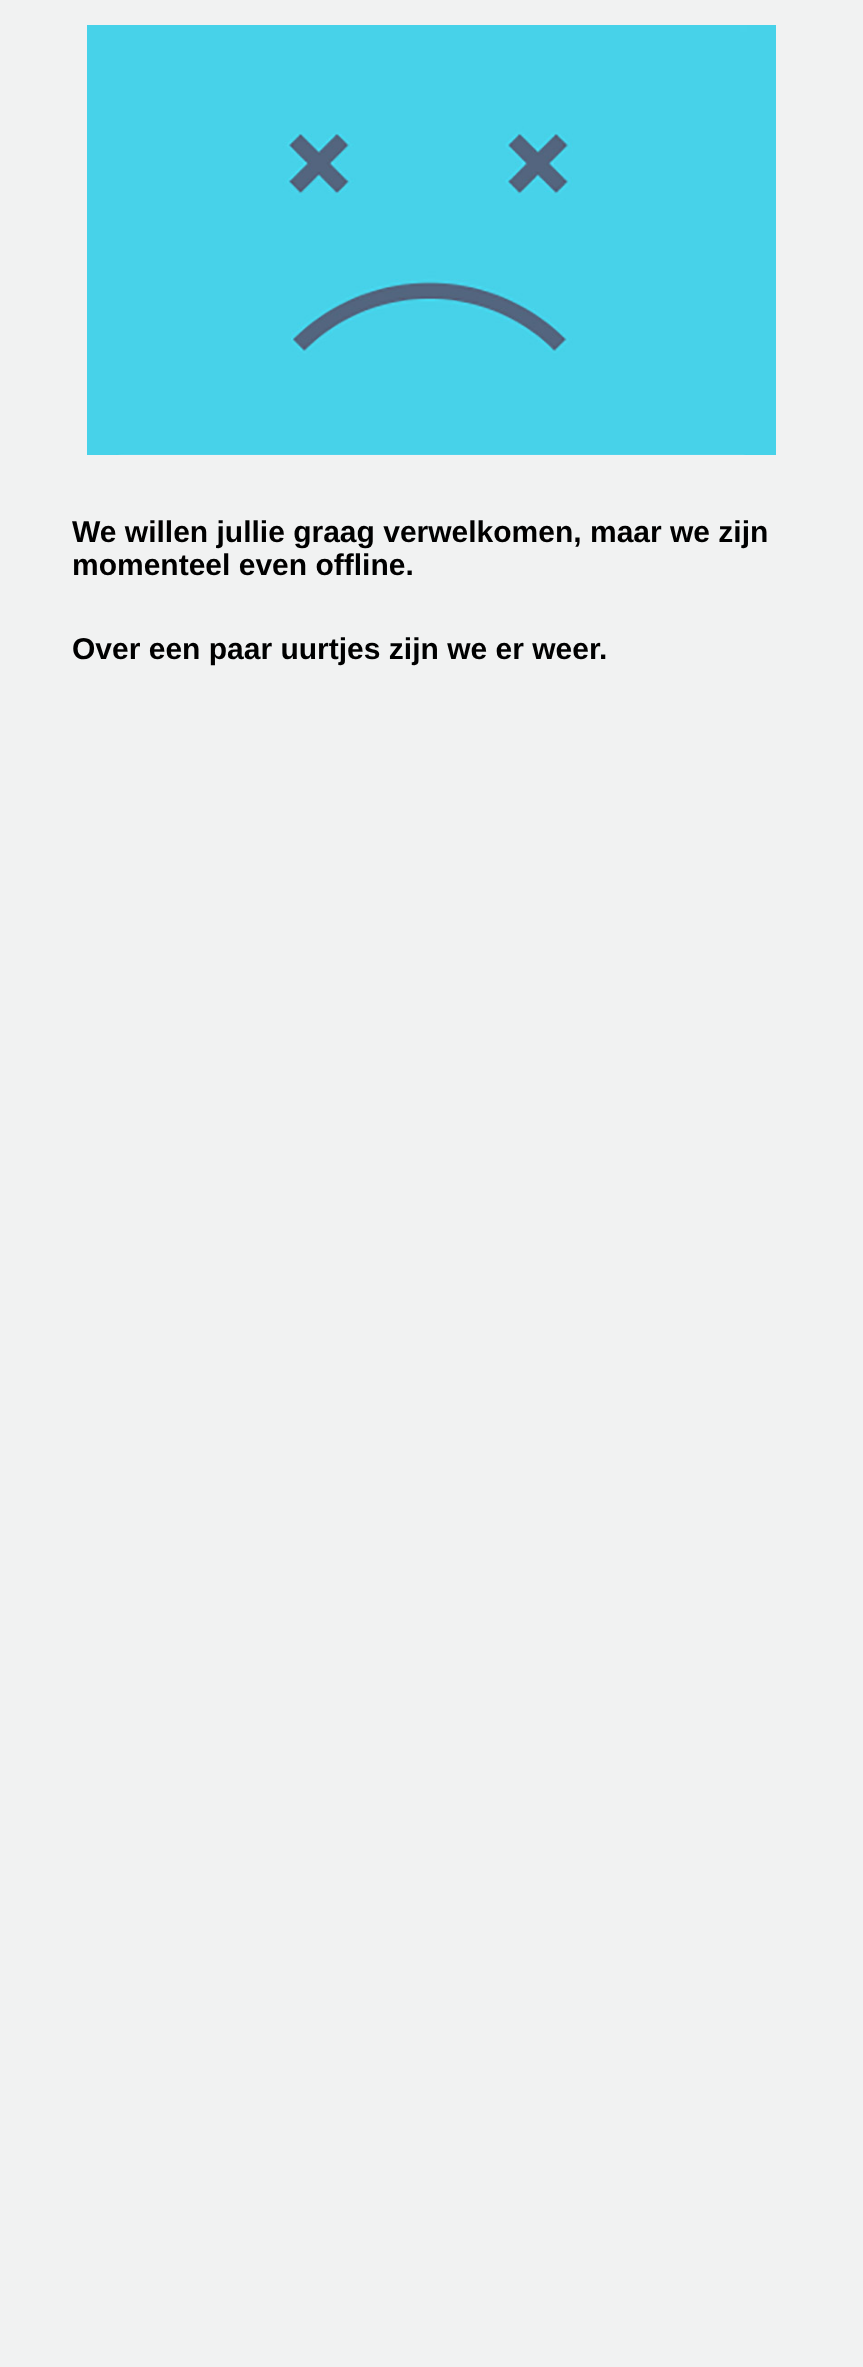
async function draw(canvas) {
  canvas.width = 863;
  canvas.height = 2367;
  const ctx = canvas.getContext('2d');
  ctx.miterLimit = 4;
  ctx.fontKerning = 'normal';
  function label(s, x, y, font, color) {
    ctx.font = font;
    ctx.fillStyle = color;
    ctx.fillText(s, x, y);
  }
  function rect(x, y, w, h, color) {
    ctx.fillStyle = color;
    ctx.fillRect(x, y, w, h);
  }
  async function image(src, x, y, w, h) {
    const img = new Image();
    img.src = src;
    await img.decode();
    ctx.drawImage(img, x, y, w, h);
  }

  rect(0, 0, 863, 2367, '#f1f2f2');
  await image('assets/img1.png', 87, 25, 689, 430);
  label('We willen jullie graag verwelkomen, maar we zijn', 72, 542, 'bold 30px Liberation Sans', '#000');
  label('momenteel even offline.', 72, 575, 'bold 30px Liberation Sans', '#000');
  label('Over een paar uurtjes zijn we er weer.', 72, 659, 'bold 30px Liberation Sans', '#000');
}

draw(document.querySelector('canvas'));
